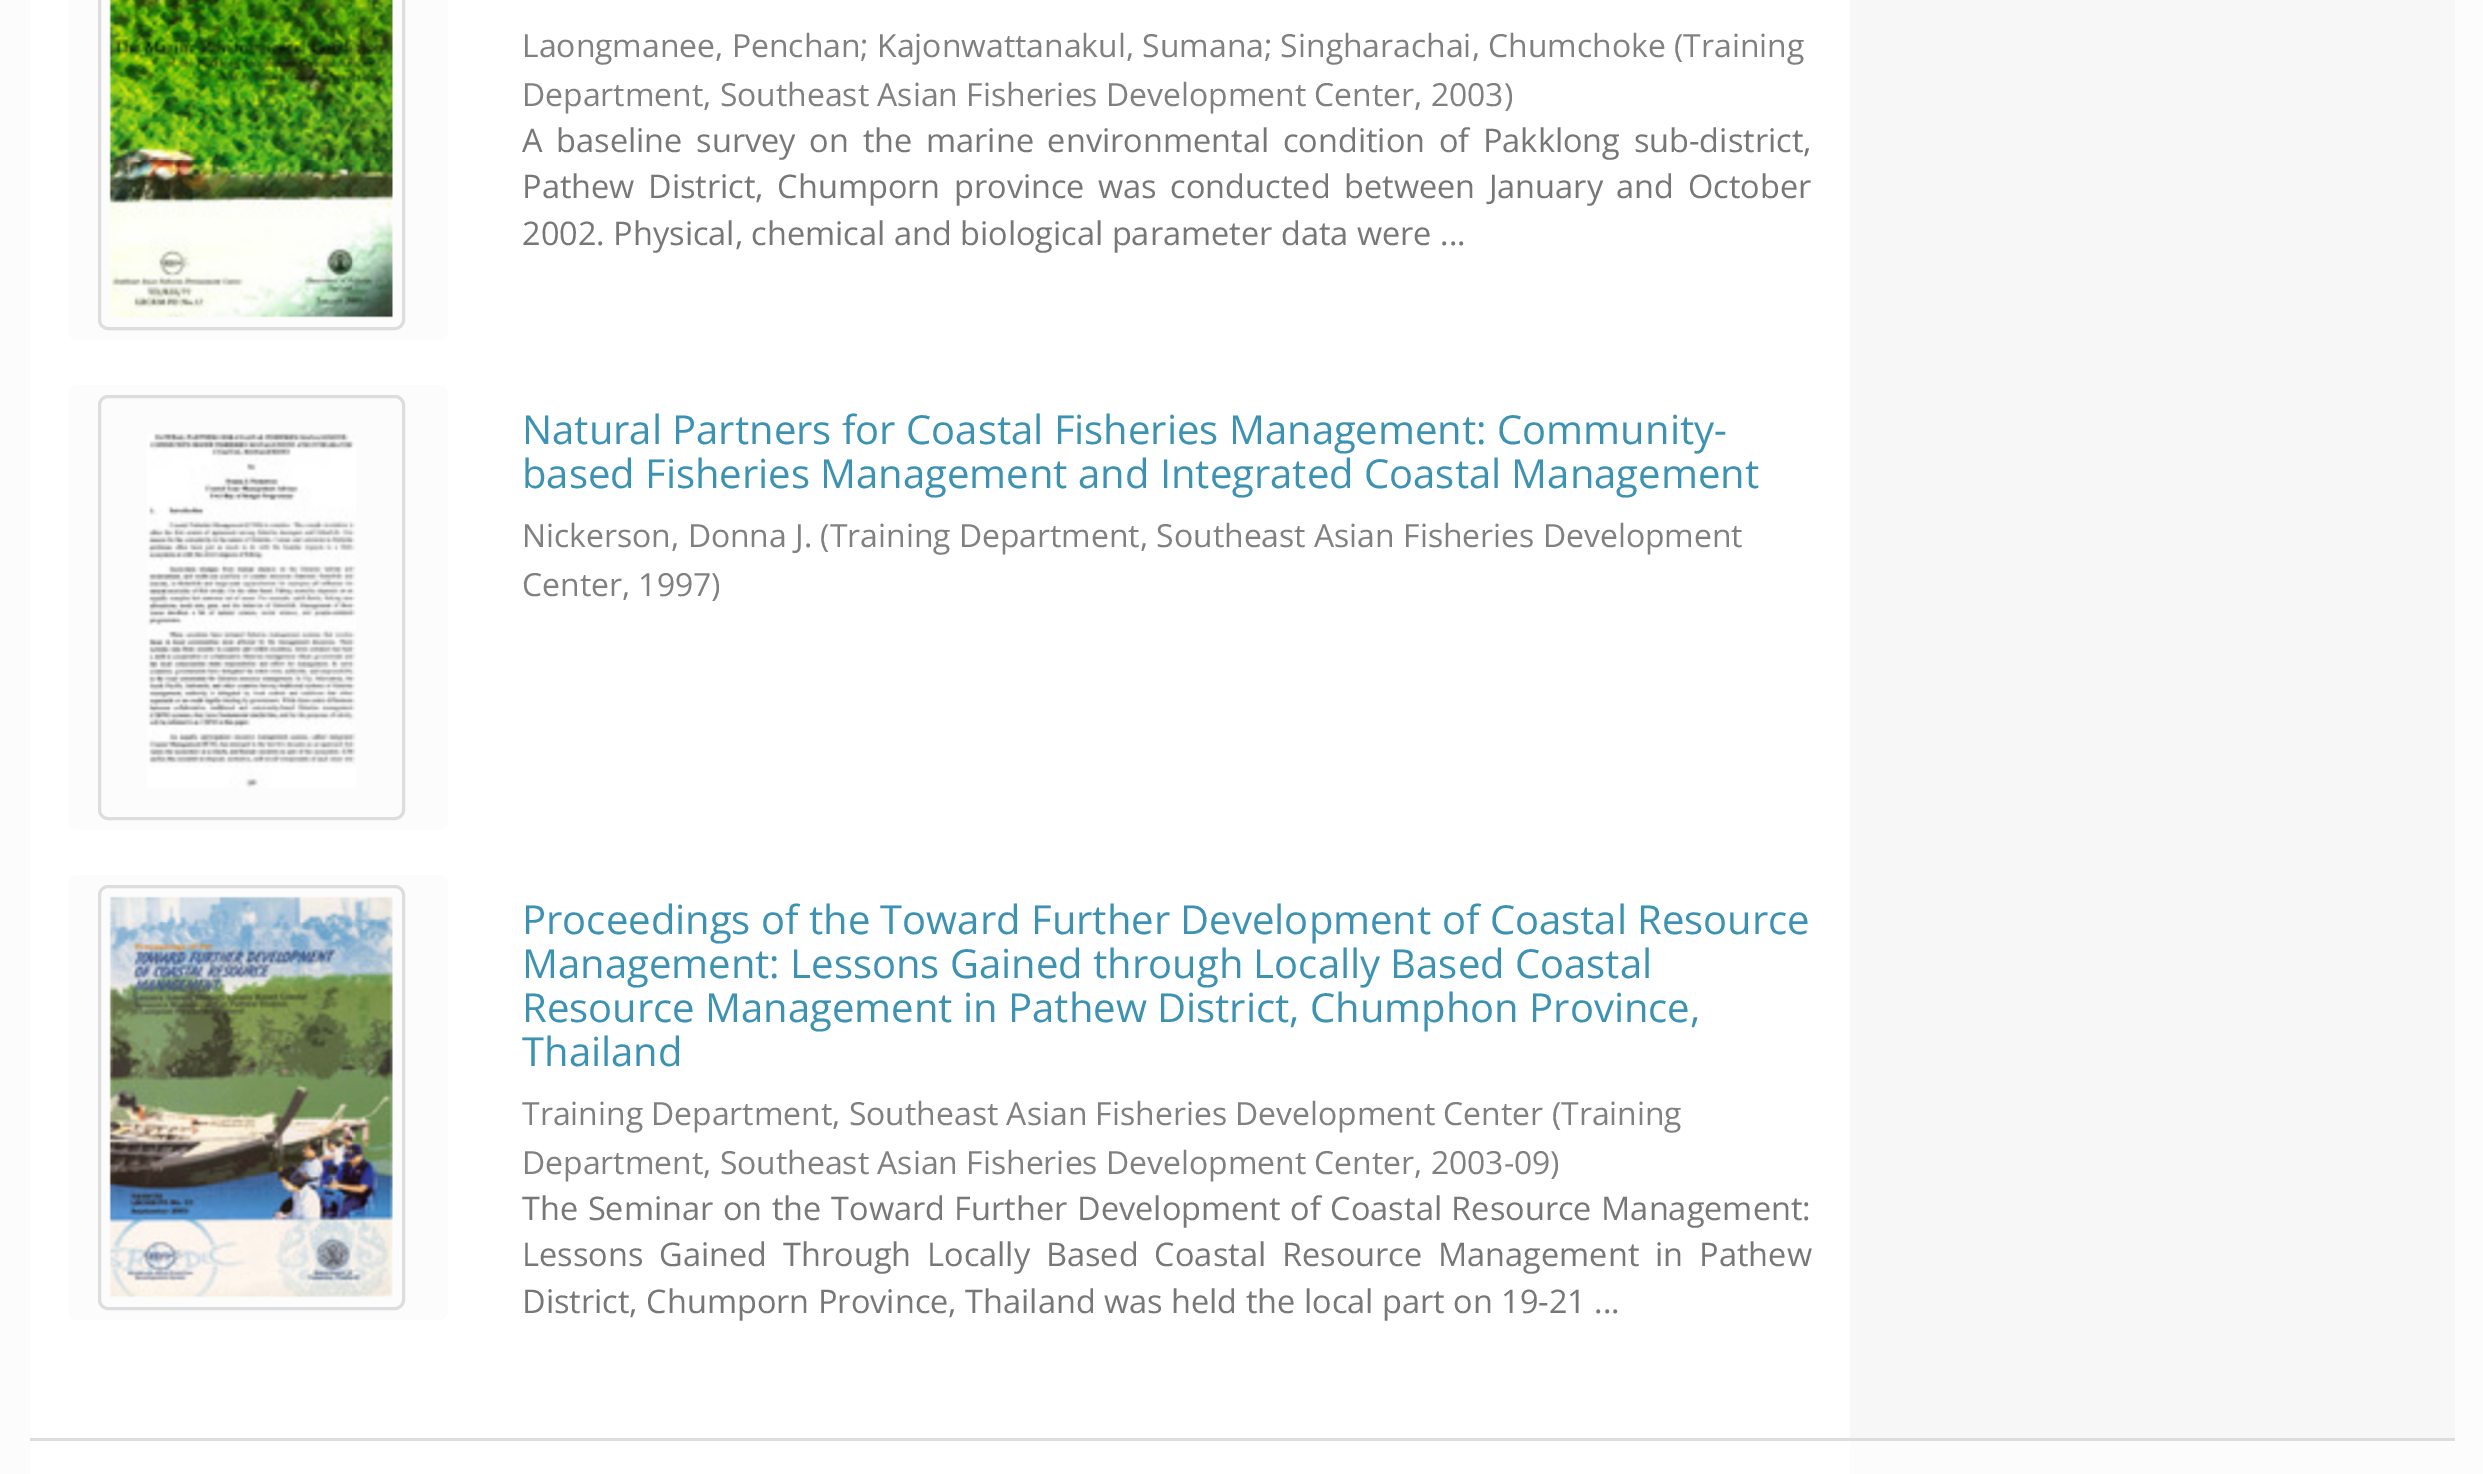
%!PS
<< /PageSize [2483 1474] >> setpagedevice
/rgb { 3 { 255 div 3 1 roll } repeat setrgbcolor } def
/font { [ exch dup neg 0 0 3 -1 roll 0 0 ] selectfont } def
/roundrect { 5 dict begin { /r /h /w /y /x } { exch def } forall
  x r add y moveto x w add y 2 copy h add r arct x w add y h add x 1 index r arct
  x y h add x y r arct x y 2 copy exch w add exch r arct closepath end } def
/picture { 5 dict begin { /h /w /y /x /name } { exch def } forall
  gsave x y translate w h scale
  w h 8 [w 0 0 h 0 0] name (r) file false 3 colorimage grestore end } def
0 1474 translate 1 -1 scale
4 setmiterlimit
252 252 252 rgb
0 0 2483 1474 rectfill
247 247 247 rgb
1850 0 605 1438 rectfill
255 255 255 rgb
30 0 1820 1474 rectfill
252 252 252 rgb
68 -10 380 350 10 roundrect fill
221 221 221 rgb
3 setlinewidth
99.5 -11.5 304 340 8.5 roundrect stroke
(img/1.rgb) 109 0 284 318 picture
252 252 252 rgb
68 385 380 445 10 roundrect fill
221 221 221 rgb
99.5 396.5 304 422 8.5 roundrect stroke
(img/2.rgb) 147 433 209 355 picture
252 252 252 rgb
68 875 380 445 10 roundrect fill
221 221 221 rgb
99.5 886.5 304 422 8.5 roundrect stroke
(img/3.rgb) 109 896 284 402 picture
30 1438 2425 3 rectfill
/OpenSans-Regular 31.9 font
128 128 128 rgb
522 57 moveto (Laongmanee, Penchan; Kajonwattanakul, Sumana; Singharachai, Chumchoke \(Training) show
522 106 moveto (Department, Southeast Asian Fisheries Development Center, 2003\)) show
/OpenSans-Regular 32.5 font
119 119 119 rgb
522 152 moveto 5.25 0 32 (A baseline survey on the marine environmental condition of Pakklong sub-district,) widthshow
522 198 moveto 5 0 32 (Pathew District, Chumporn province was conducted between January and October) widthshow
522 245 moveto (2002. Physical, chemical and biological parameter data were ...) show
/OpenSans-Regular 40 font
60 146 179 rgb
522 444 moveto (Natural Partners for Coastal Fisheries Management: Community-) show
522 488 moveto (based Fisheries Management and Integrated Coastal Management) show
/OpenSans-Regular 31.9 font
128 128 128 rgb
522 547 moveto (Nickerson, Donna J. \(Training Department, Southeast Asian Fisheries Development) show
522 596 moveto (Center, 1997\)) show
/OpenSans-Regular 40 font
60 146 179 rgb
[
  [(Proceedings of the Toward Further Development of Coastal Resource) 522 934]
  [(Management: Lessons Gained through Locally Based Coastal) 522 978]
  [(Resource Management in Pathew District, Chumphon Province,) 522 1022]
  [(Thailand) 522 1066]
] { aload pop moveto show } forall
/OpenSans-Regular 31.9 font
128 128 128 rgb
522 1125 moveto (Training Department, Southeast Asian Fisheries Development Center \(Training) show
522 1174 moveto (Department, Southeast Asian Fisheries Development Center, 2003-09\)) show
/OpenSans-Regular 32.5 font
119 119 119 rgb
522 1220 moveto 1.1 0 32 (The Seminar on the Toward Further Development of Coastal Resource Management:) widthshow
522 1266 moveto 7.5 0 32 (Lessons Gained Through Locally Based Coastal Resource Management in Pathew) widthshow
522 1313 moveto (District, Chumporn Province, Thailand was held the local part on 19-21 ...) show
showpage
